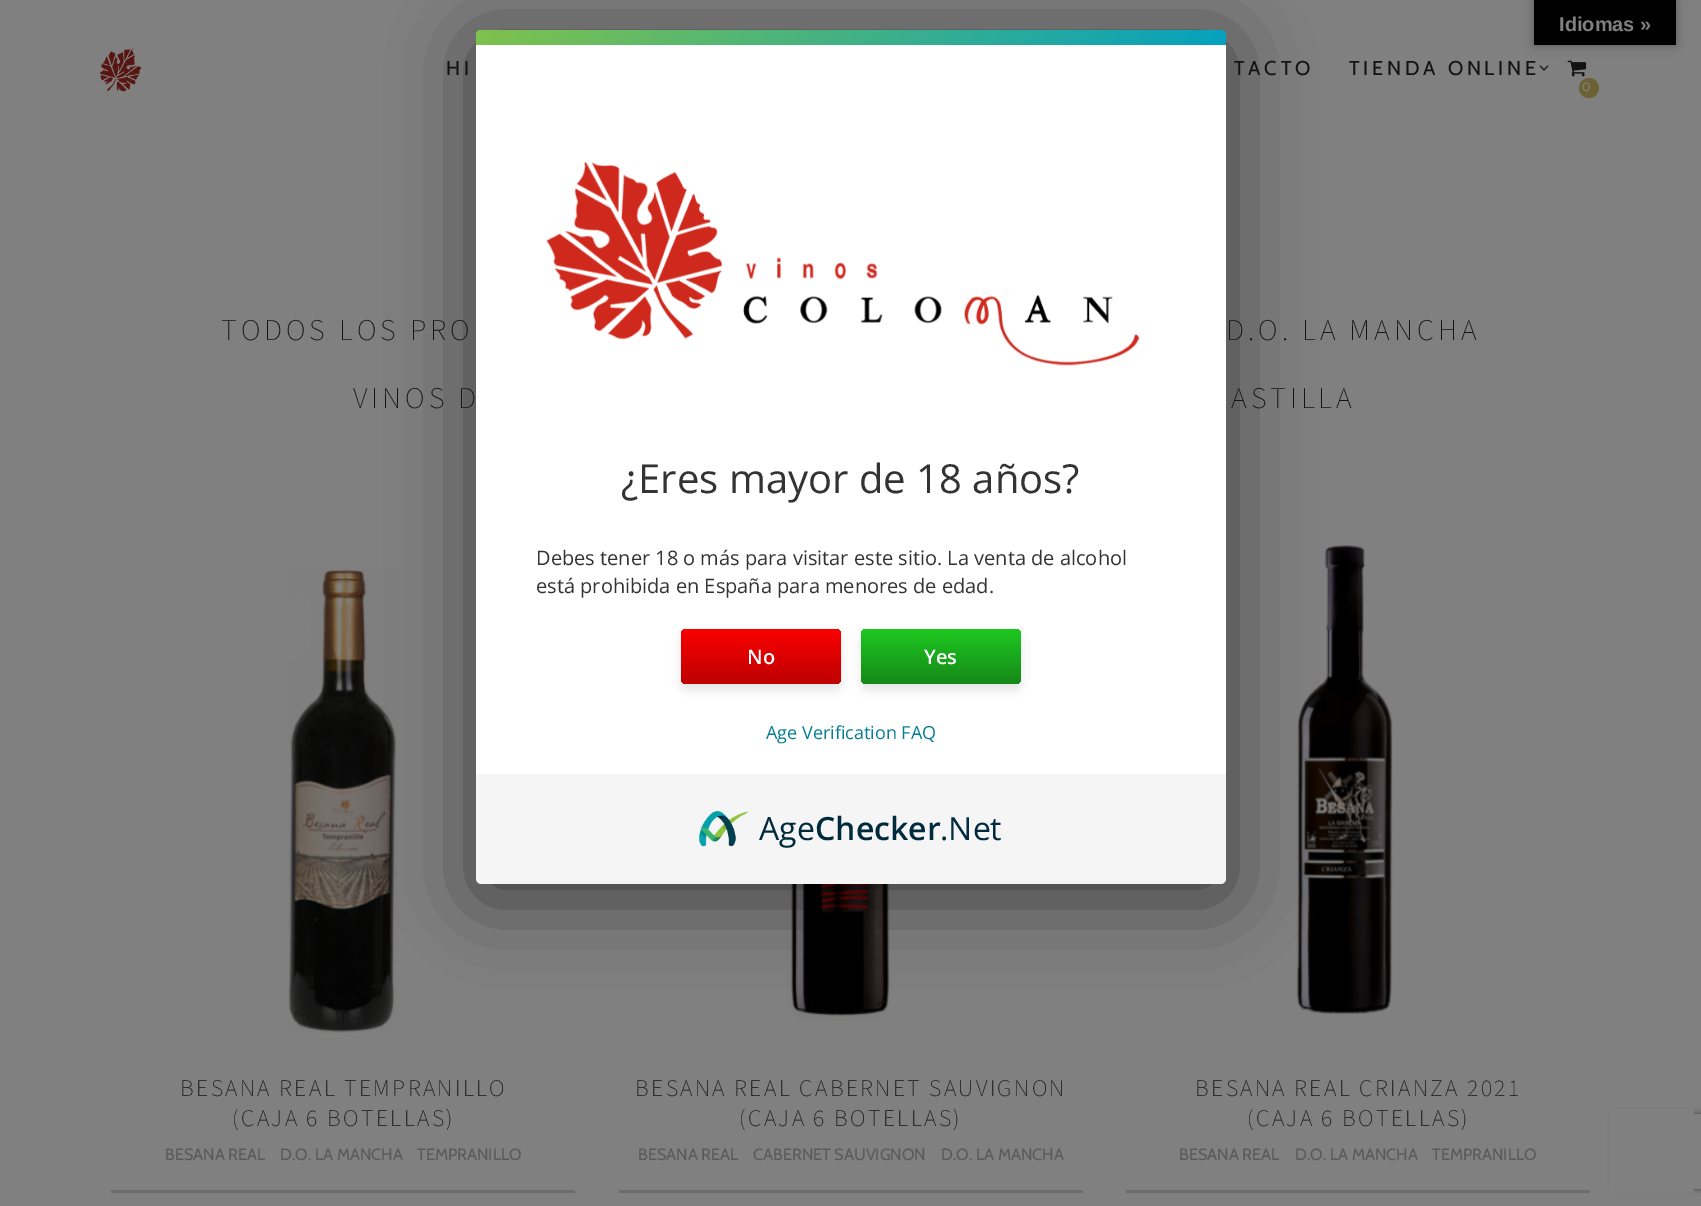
%!PS
<< /PageSize [1701 1206] /PageUsesTransparency true >> setpagedevice
/rgb { 3 { 255 div 3 1 roll } repeat setrgbcolor } def
/font { [ exch dup neg 0 0 3 -1 roll 0 0 ] selectfont } def
/alpha { dup .setfillconstantalpha .setstrokeconstantalpha } def
/circle { newpath 0 360 arc closepath } def
/roundrect { 5 dict begin { /r /h /w /y /x } { exch def } forall
  x r add y moveto x w add y 2 copy h add r arct x w add y h add x 1 index r arct
  x y h add x y r arct x y 2 copy exch w add exch r arct closepath end } def
/shadow { 12 dict begin { /a /b /q /h /w /y /x } { exch def } forall gsave /was 0 def
  9 -2 -9 { dup b mul 4 div /e exch def 1 sub .425 mul 2.718 exch exp 1 add a .99 .min exch div /now exch def
    1 1 now sub 1 was sub div sub alpha /was now def
    w h .min e 2 mul add 0 gt { x e sub y e sub w e 2 mul add h e 2 mul add
      q e add b .6 mul add w h .min 2 div e add .min 0 .max roundrect fill } if } for grestore end } def
/picture { 5 dict begin { /h /w /y /x /name } { exch def } forall
  gsave x y translate w h scale
  w h 8 [w 0 0 h 0 0] name (r) file false 3 colorimage grestore end } def
0 .pushpdf14devicefilter
0 1206 translate 1 -1 scale
4 setmiterlimit
128 128 128 rgb
0 0 1701 1206 rectfill
(img/2.rgb) 1567 60 20 17 picture
0 0 0 rgb
1534 0 142 45 0 5.5 0.3 shadow
1534 0 142 45 rectfill
(img/1.rgb) 100 47 42 45 picture
19 19 19 rgb
1547.5 65.5 moveto 1548.5 66 lineto 1544 70.5 lineto 1543 70 lineto closepath fill
1540.5 65.5 moveto 1545 70 lineto 1544 70.5 lineto 1539.5 66 lineto closepath fill
108 98 51 rgb
1589 88 10 circle fill
gsave
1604 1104 moveto 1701 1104 lineto 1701 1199 lineto 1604 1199 lineto closepath 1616.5 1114 moveto 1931.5 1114 lineto 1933 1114 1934 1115 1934 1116.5 curveto 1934 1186.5 lineto 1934 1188 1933 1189 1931.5 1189 curveto 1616.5 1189 lineto 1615 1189 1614 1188 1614 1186.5 curveto 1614 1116.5 lineto 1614 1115 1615 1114 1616.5 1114 curveto closepath eoclip newpath
64 64 64 rgb
1614 1114 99 75 2.5 3 1 shadow
grestore
128 128 128 rgb
1609 1109 85 85 rectfill
(img/3.rgb) 288 569 109 464 picture
108 108 108 rgb
111 1190 464 3 rectfill
(img/4.rgb) 786 884 104 137 picture
619 1190 464 3 rectfill
(img/5.rgb) 1296 545 97 470 picture
1126 1190 464 3 rectfill
0 0 0 rgb
473 39 757 861 10 40 0.5 shadow
255 255 255 rgb
476 30 750 854 6 roundrect fill
gsave 482 30 moveto 1220 30 lineto 1223.5 30 1226 32.5 1226 36 curveto 1226 45 lineto 476 45 lineto 476 36 lineto 476 32.5 478.5 30 482 30 curveto closepath clip newpath
<< /ShadingType 2 /ColorSpace /DeviceRGB /Coords [660 -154 1043 229] /Extend [true true] /Function << /FunctionType 2 /Domain [0 1] /C0 [0.498 0.761 0.298] /C1 [0.016 0.631 0.749] /N 1 >> >> shfill grestore
(img/6.rgb) 546 162 594 204 picture
0 0 0 rgb
681 635 160 55 6 5 0.1 shadow
gsave 681 629 160 55 6 roundrect clip newpath
<< /ShadingType 2 /ColorSpace /DeviceRGB /Coords [761 629 761 684] /Extend [true true] /Function << /FunctionType 2 /Domain [0 1] /C0 [0.98 0 0] /C1 [0.745 0 0] /N 1 >> >> shfill grestore
861 635 160 55 6 5 0.1 shadow
gsave 861 629 160 55 6 roundrect clip newpath
<< /ShadingType 2 /ColorSpace /DeviceRGB /Coords [941 629 941 684] /Extend [true true] /Function << /FunctionType 2 /Domain [0 1] /C0 [0.114 0.784 0.125] /C1 [0.086 0.533 0.098] /N 1 >> >> shfill grestore
245 245 245 rgb
476 774 moveto 1226 774 lineto 1226 878 lineto 1226 881.5 1223.5 884 1220 884 curveto 482 884 lineto 478.5 884 476 881.5 476 878 curveto closepath fill
(img/7.rgb) 698 811 50 36 picture
/LiberationSans-Bold 20 font
128 128 128 rgb
1559 31 moveto (Idiomas ») show
/Cabin-Regular 20 font
19 19 19 rgb
446 75 moveto 3.75 0 (HI) ashow
1234 75 moveto 3.75 0 (TACTO) ashow
1349 75 moveto 3.75 0 (TIENDA ONLINE) ashow
/Cabin-Regular 12 font
128 128 128 rgb
1582 91 moveto 3.75 0 (0) ashow
/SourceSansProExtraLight-ExtraLight 30 font
19 19 19 rgb
221 340 moveto 4 0 (TODOS LOS PRO) ashow
1226 340 moveto 4 0 (D.O. LA MANCHA) ashow
353 408 moveto 4 0 (VINOS D) ashow
1231 408 moveto 4 0 (ASTILLA) ashow
/SourceSansProExtraLight-ExtraLight 23.75 font
180 1096 moveto 2.4 0 (BESANA REAL TEMPRANILLO) ashow
232 1126 moveto 2.4 0 (\(CAJA 6 BOTELLAS\)) ashow
/Cabin-Regular 16.25 font
90 90 90 rgb
[
  [(BESANA REAL) 165 1160]
  [(D.O. LA MANCHA) 280 1160]
  [(TEMPRANILLO) 417 1160]
] { aload pop moveto show } forall
/SourceSansProExtraLight-ExtraLight 23.75 font
19 19 19 rgb
635 1096 moveto 2.4 0 (BESANA REAL CABERNET SAUVIGNON) ashow
739 1126 moveto 2.4 0 (\(CAJA 6 BOTELLAS\)) ashow
/Cabin-Regular 16.25 font
90 90 90 rgb
[
  [(BESANA REAL) 638 1160]
  [(CABERNET SAUVIGNON) 753 1160]
  [(D.O. LA MANCHA) 941 1160]
] { aload pop moveto show } forall
/SourceSansProExtraLight-ExtraLight 23.75 font
19 19 19 rgb
1195 1096 moveto 2.4 0 (BESANA REAL CRIANZA 2021) ashow
1247 1126 moveto 2.4 0 (\(CAJA 6 BOTELLAS\)) ashow
/Cabin-Regular 16.25 font
90 90 90 rgb
[
  [(BESANA REAL) 1179 1160]
  [(D.O. LA MANCHA) 1295 1160]
  [(TEMPRANILLO) 1432 1160]
] { aload pop moveto show } forall
/OpenSans-Regular 40 font
51 51 51 rgb
621 493 moveto (¿Eres mayor de 18 años?) show
/OpenSans-Regular 20 font
536 565 moveto (Debes tener 18 o más para visitar este sitio. La venta de alcohol) show
536 593 moveto (está prohibida en España para menores de edad.) show
/OpenSans-SemiBold 20 font
255 255 255 rgb
747 664 moveto (No) show
924 664 moveto (Yes) show
/OpenSans-Regular 18 font
3 125 150 rgb
766 739 moveto (Age Verification FAQ) show
/OpenSans-Regular 32 font
0 43 62 rgb
759 840 moveto (Age) show
/OpenSans-SemiBold 32 font
815 840 moveto (Checker) show
/OpenSans-Regular 32 font
940 840 moveto (.Net) show
.poppdf14devicefilter showpage
